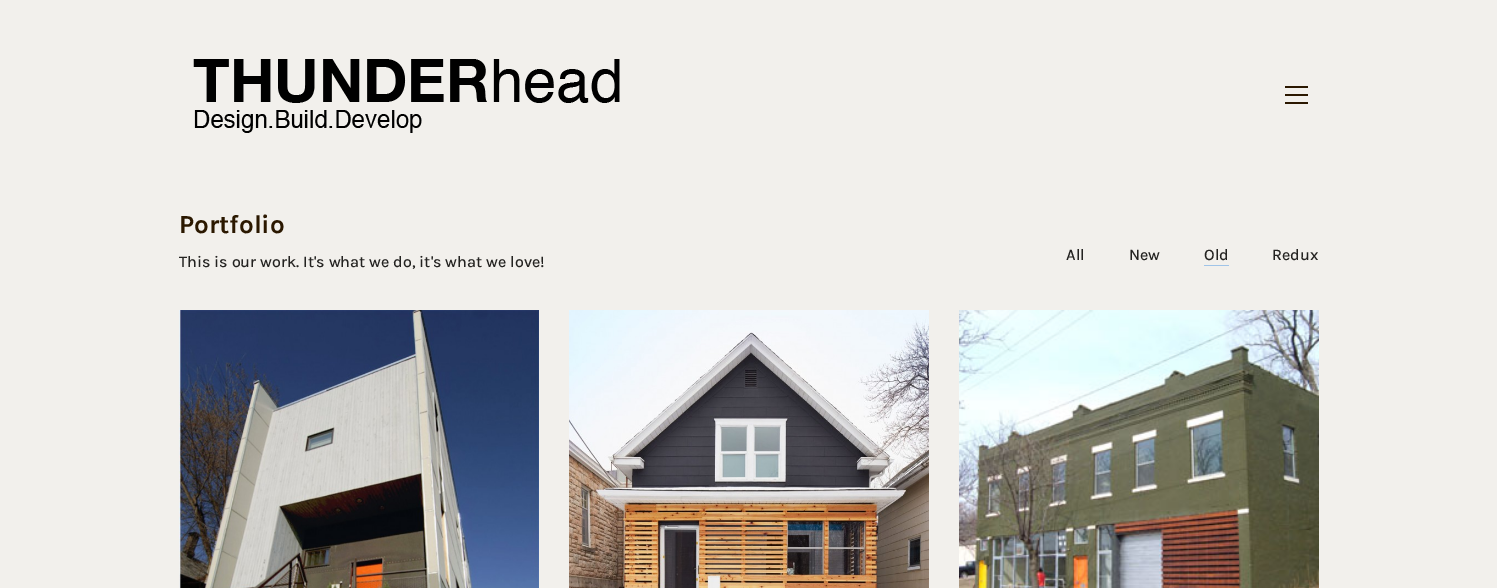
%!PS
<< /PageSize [1497 588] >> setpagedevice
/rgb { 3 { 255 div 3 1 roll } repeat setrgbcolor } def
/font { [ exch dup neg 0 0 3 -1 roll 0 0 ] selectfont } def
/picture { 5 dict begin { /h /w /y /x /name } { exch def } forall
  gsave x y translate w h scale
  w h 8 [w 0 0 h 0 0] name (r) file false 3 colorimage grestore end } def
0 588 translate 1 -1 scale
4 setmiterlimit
242 240 236 rgb
0 0 1497 588 rectfill
(img/1.rgb) 193 59 427 74 picture
[
  [1285 94 23 2 43 24 0]
  [1285 86 23 2 43 24 0]
  [1285 102 23 2 43 24 0]
  [1204 265 25 1 160 196 232]
] { aload pop rgb rectfill } forall
(img/2.rgb) 179 310 360 278 picture
(img/3.rgb) 569 310 360 278 picture
(img/4.rgb) 959 310 360 278 picture
/Karla-Bold 26 font
43 24 0 rgb
179 233 moveto (Portfolio) show
/Karla-Medium 16 font
36 35 33 rgb
[
  [(This is our work. It's what we do, it's what we love!) 179 267]
  [(All) 1066 260]
  [(New) 1129 260]
  [(Old) 1204 260]
  [(Redux) 1272 260]
] { aload pop moveto show } forall
showpage
